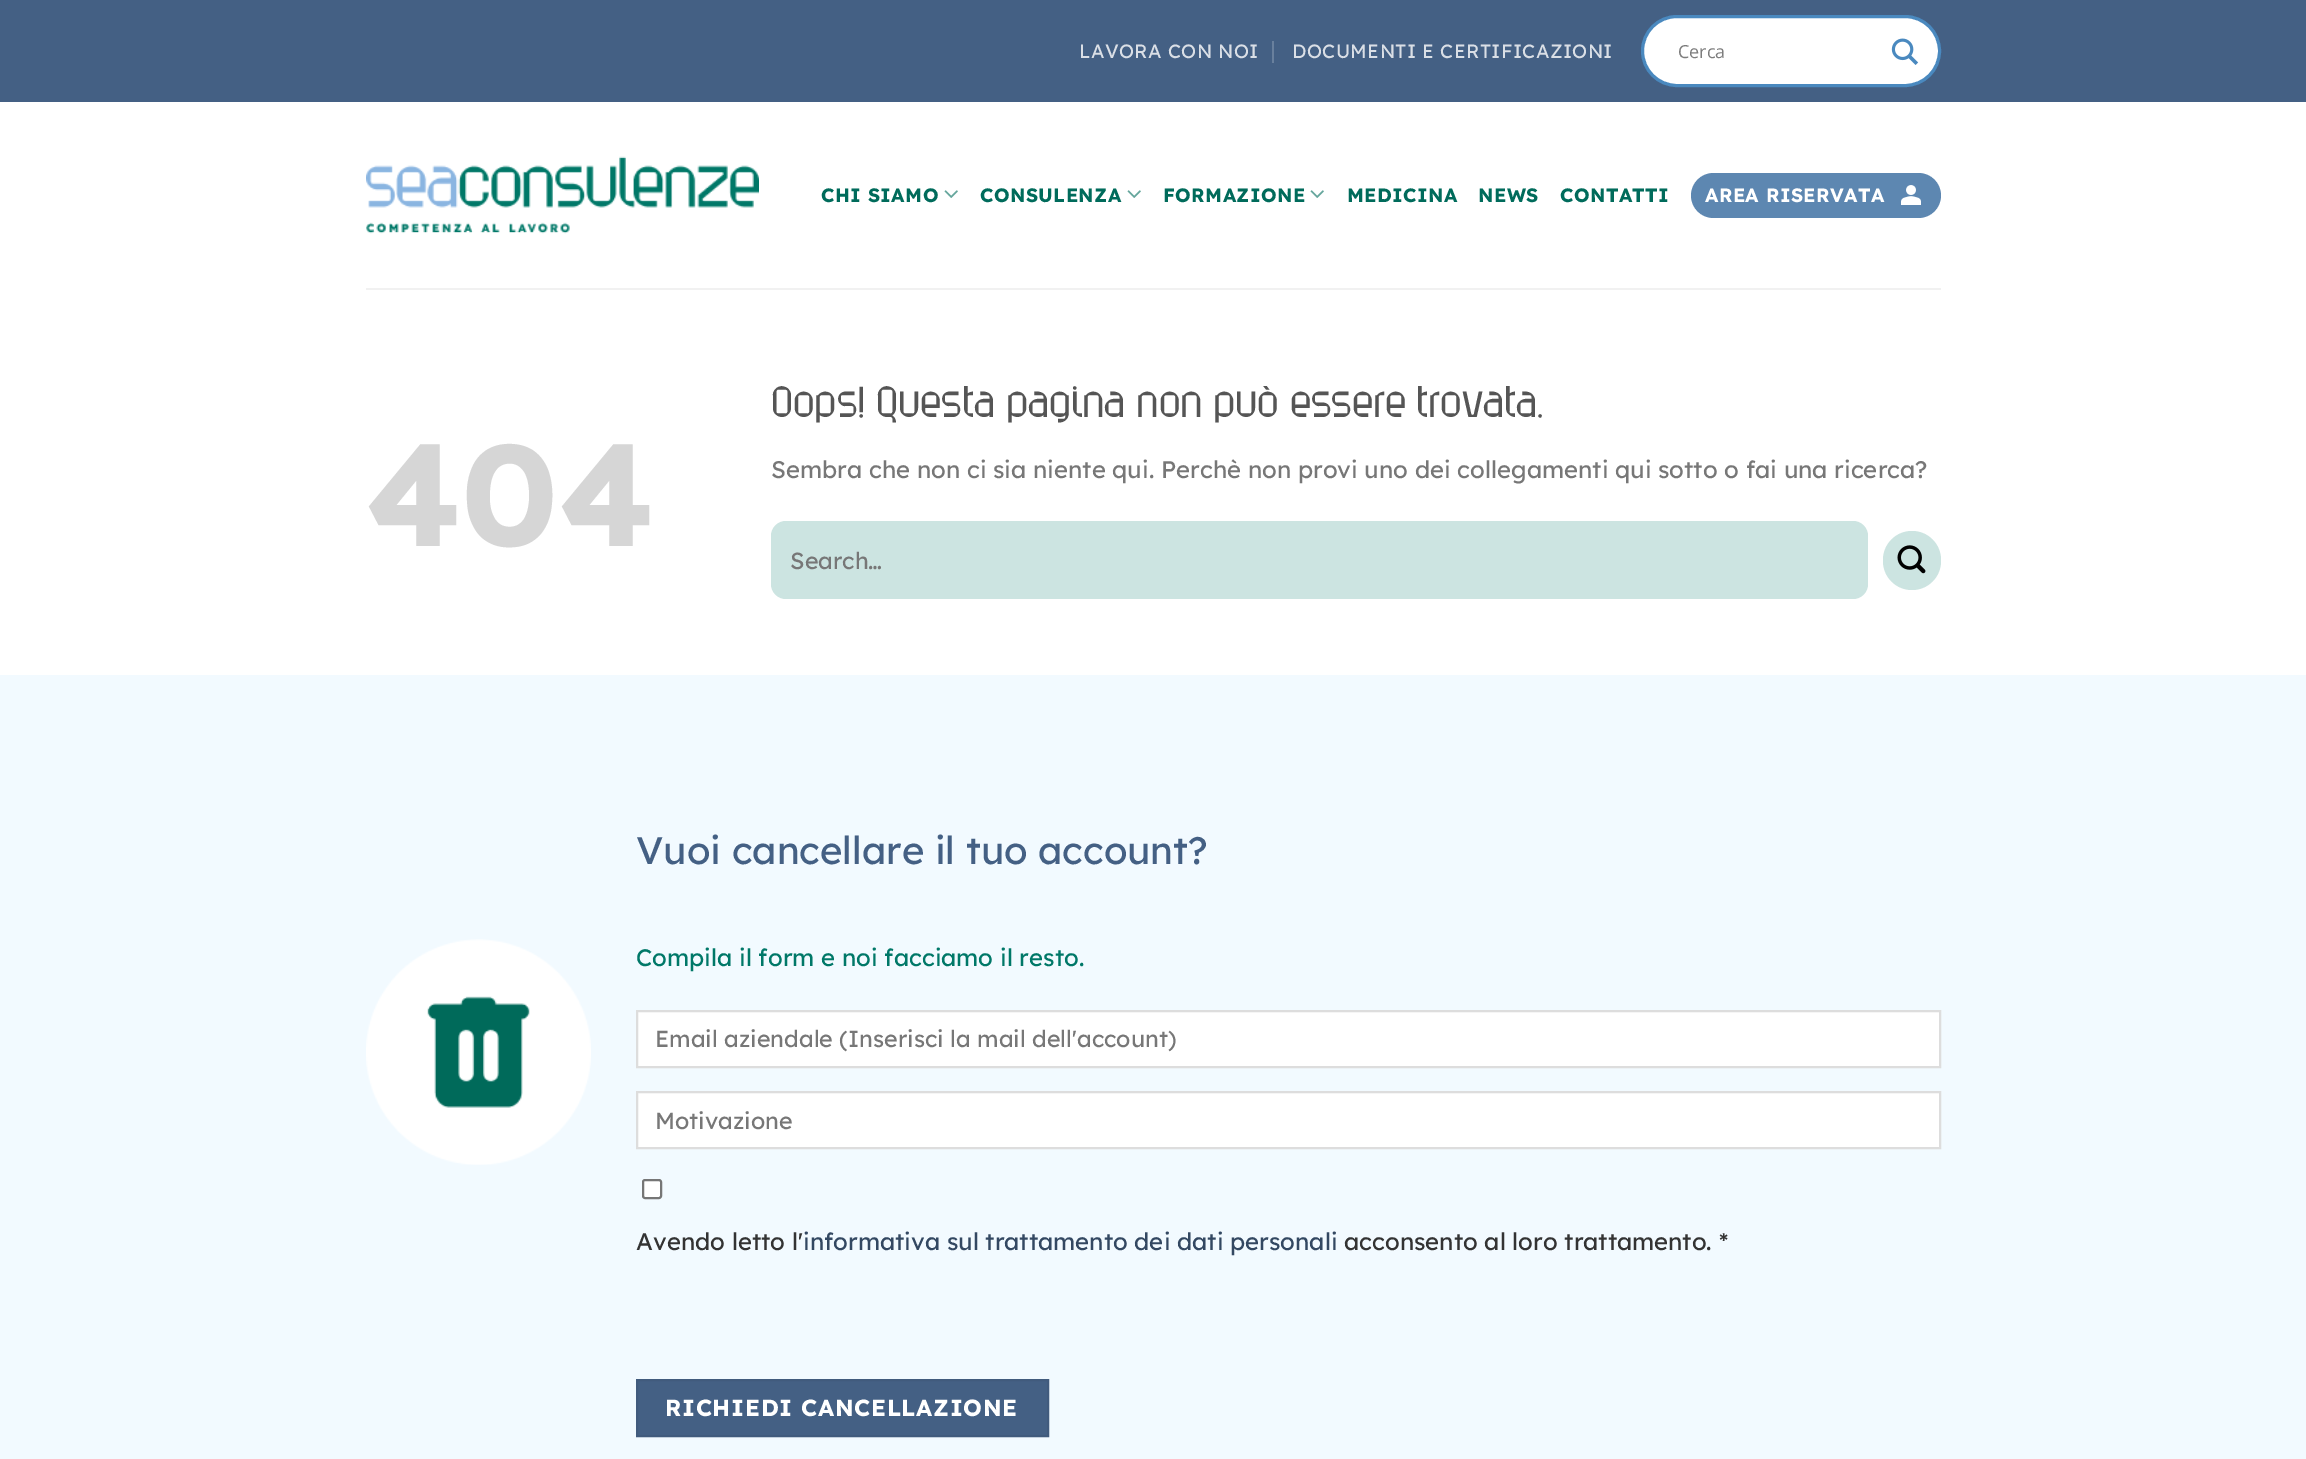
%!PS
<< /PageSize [2306 1459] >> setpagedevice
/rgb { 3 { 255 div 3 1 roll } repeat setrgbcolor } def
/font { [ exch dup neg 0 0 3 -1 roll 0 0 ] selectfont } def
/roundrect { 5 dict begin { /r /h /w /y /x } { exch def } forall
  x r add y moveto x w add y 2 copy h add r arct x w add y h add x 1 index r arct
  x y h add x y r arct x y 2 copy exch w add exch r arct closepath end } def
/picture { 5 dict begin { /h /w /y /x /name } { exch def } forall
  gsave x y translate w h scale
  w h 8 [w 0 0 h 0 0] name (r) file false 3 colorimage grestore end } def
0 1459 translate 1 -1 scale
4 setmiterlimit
255 255 255 rgb
0 0 2306 1459 rectfill
68 96 132 rgb
0 0 2306 102 rectfill
105 128 157 rgb
1272 41 2 22 rectfill
255 255 255 rgb
1642.5 16.5 297 69 34.5 roundrect gsave fill grestore
74 137 191 rgb
3 setlinewidth
stroke
(img/1.rgb) 1891 38 28 27 picture
(img/2.rgb) 366 156 393 78 picture
(img/3.rgb) 944 190 14 8 picture
(img/3.rgb) 1127 190 14 8 picture
(img/3.rgb) 1310 190 14 8 picture
93 135 177 rgb
1691 173 250 45 22.5 roundrect fill
(img/4.rgb) 1901 185 20 20 picture
241 241 241 rgb
366 288 1575 2 rectfill
204 228 225 rgb
771 521 1097 78 15 roundrect fill
1883 531 58 59 29 roundrect fill
(img/5.rgb) 1897 545 29 29 picture
242 250 255 rgb
0 675 2306 784 rectfill
(img/6.rgb) 366 939 225 226 picture
255 255 255 rgb
637 1011 moveto 1940 1011 lineto 1940 1067 lineto 637 1067 lineto closepath gsave fill grestore
221 221 221 rgb
2 setlinewidth
stroke
255 255 255 rgb
637 1092 moveto 1940 1092 lineto 1940 1148 lineto 637 1148 lineto closepath gsave fill grestore
221 221 221 rgb
stroke
255 255 255 rgb
643 1180 18 18 2 roundrect gsave fill grestore
118 118 118 rgb
stroke
68 96 132 rgb
637 1380 moveto 1048 1380 lineto 1048 1436 lineto 637 1436 lineto closepath gsave fill grestore
65 91 125 rgb
stroke
/Lexend-Regular 19.25 font
218 223 230 rgb
1079 58 moveto 0.4 0 (LAVORA CON NOI) ashow
1292 58 moveto 0.4 0 (DOCUMENTI E CERTIFICAZIONI) ashow
/OpenSans-Regular 18 font
125 125 125 rgb
1678 58 moveto (Cerca) show
/Lexend-Bold 19.25 font
0 107 91 rgb
821 202 moveto 0.4 0 (CHI SIAMO) ashow
980 202 moveto 0.4 0 (CONSULENZA) ashow
1163 202 moveto 0.4 0 (FORMAZIONE) ashow
1347 202 moveto 0.4 0 (MEDICINA) ashow
1478 202 moveto 0.4 0 (NEWS) ashow
1560 202 moveto 0.4 0 (CONTATTI) ashow
255 255 255 rgb
1705 202 moveto 0.4 0 (AREA RISERVATA) ashow
/Lexend-Bold 144 font
214 214 214 rgb
366 546 moveto (404) show
/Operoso-Regular 40.75 font
85 85 85 rgb
771 417 moveto (Oops! Questa pagina non può essere trovata.) show
/Lexend-Regular 24 font
119 119 119 rgb
771 478 moveto (Sembra che non ci sia niente qui. Perchè non provi uno dei collegamenti qui sotto o fai una ricerca?) show
/Lexend-Regular 23.25 font
790 569 moveto (Search…) show
/Lexend-Regular 38.4 font
68 96 132 rgb
636 864 moveto (Vuoi cancellare il tuo account?) show
/Lexend-Regular 24 font
0 120 104 rgb
636 966 moveto (Compila il form e noi facciamo il resto.) show
/Lexend-Regular 23.25 font
119 119 119 rgb
655 1047 moveto (Email aziendale \(Inserisci la mail dell'account\)) show
655 1129 moveto (Motivazione) show
/Lexend-Regular 24 font
51 51 51 rgb
636 1250 moveto (Avendo letto l') show
51 72 98 rgb
803 1250 moveto (informativa sul trattamento dei dati personali) show
51 51 51 rgb
1344 1250 moveto (acconsento al loro trattamento. *) show
/Lexend-Bold 23.25 font
255 255 255 rgb
665 1416 moveto 0.7 0 (RICHIEDI CANCELLAZIONE) ashow
showpage
